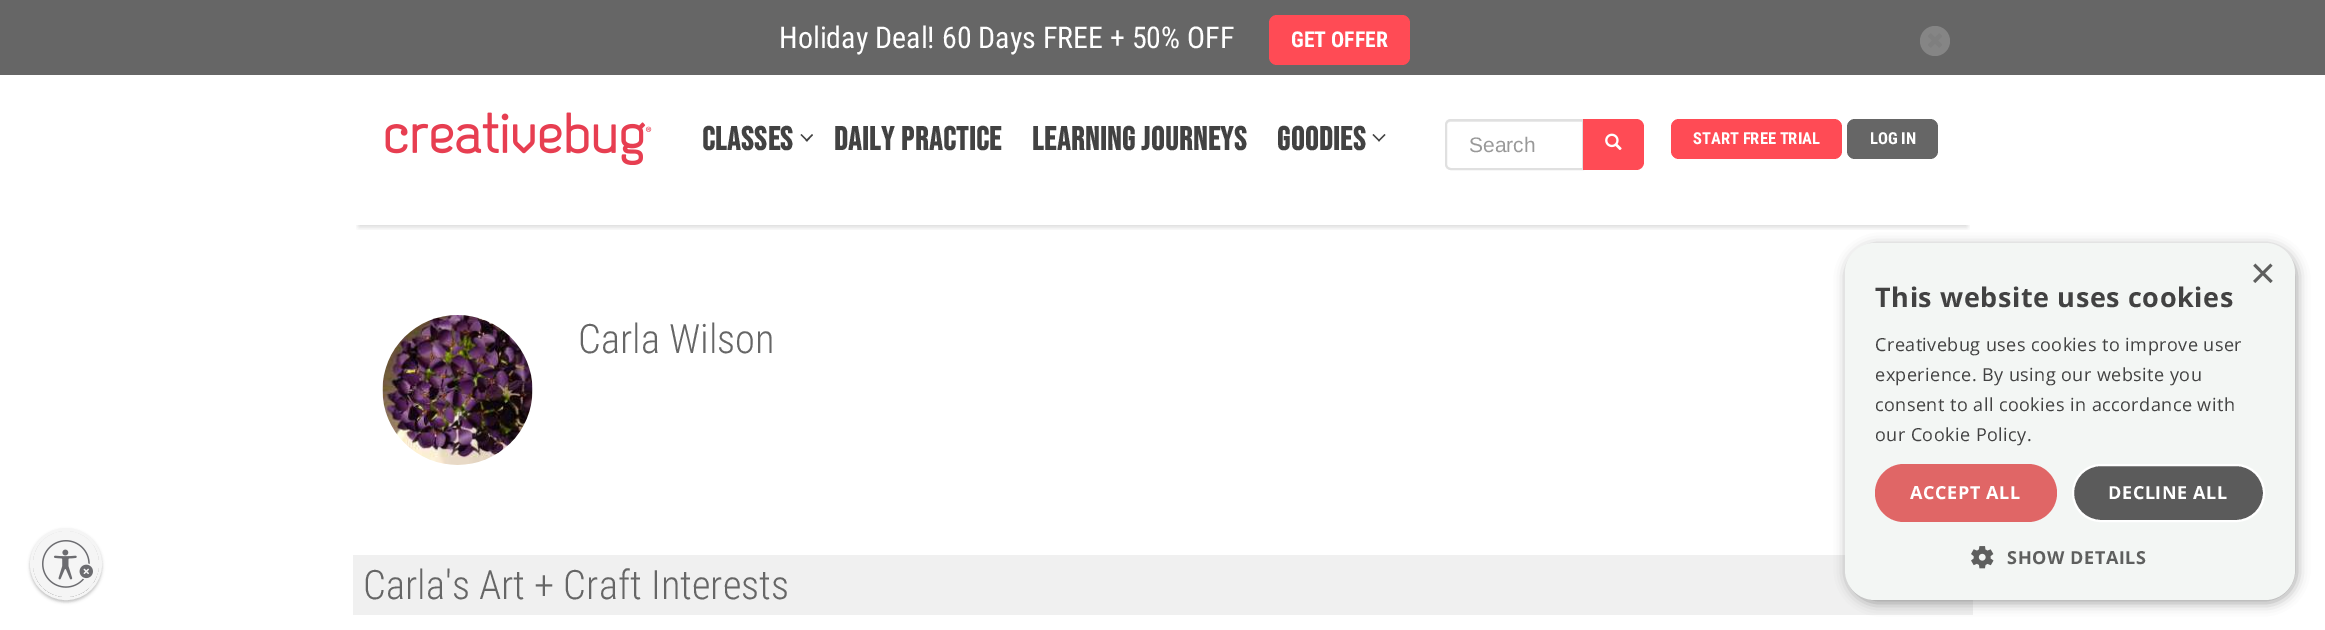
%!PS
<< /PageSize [2325 630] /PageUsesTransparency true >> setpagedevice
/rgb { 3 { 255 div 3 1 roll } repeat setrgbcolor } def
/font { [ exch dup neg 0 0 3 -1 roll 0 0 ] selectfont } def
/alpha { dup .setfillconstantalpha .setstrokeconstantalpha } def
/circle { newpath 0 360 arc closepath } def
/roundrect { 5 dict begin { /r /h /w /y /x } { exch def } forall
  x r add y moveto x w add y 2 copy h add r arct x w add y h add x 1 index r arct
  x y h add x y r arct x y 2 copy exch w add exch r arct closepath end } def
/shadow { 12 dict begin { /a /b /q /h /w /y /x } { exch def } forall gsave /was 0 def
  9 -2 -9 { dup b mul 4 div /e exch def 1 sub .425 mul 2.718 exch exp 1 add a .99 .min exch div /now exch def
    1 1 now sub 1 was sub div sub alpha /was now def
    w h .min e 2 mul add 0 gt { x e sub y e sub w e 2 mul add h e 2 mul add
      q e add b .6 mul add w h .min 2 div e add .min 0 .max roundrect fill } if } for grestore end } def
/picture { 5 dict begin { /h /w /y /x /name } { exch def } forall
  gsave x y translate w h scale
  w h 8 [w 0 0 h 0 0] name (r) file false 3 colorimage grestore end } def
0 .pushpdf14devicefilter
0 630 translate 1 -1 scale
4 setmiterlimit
255 255 255 rgb
0 0 2325 630 rectfill
0 0 0 rgb
30 530 72 72 36 1.5 0.24 shadow
245 245 245 rgb
3 setlinewidth
66 564 34.5 circle stroke
gsave
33 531 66 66 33 roundrect clip newpath
0 0 0 rgb
33 533 66 66 33 1.5 0.24 shadow
grestore
66 564 33 circle fill
(img/1.rgb) 42 540 51 48 picture
102 102 102 rgb
0 0 2325 75 rectfill
255 75 85 rgb
1269 15 141 50 8 roundrect fill
133 133 133 rgb
1935 41 15 circle fill
(img/2.rgb) 1928 33 14 15 picture
gsave
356 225 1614 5 rectclip
0 0 0 rgb
359 89 1608 138 0 3 0.16 shadow
grestore
(img/3.rgb) 385 112 267 53 picture
66 66 66 rgb
812 134 moveto 813 135 lineto 807 141.5 lineto 805.5 140.5 lineto closepath fill
801.5 134 moveto 808 140.5 lineto 807 141.5 lineto 800.5 135 lineto closepath fill
1384.5 134 moveto 1385.5 135 lineto 1379 141.5 lineto 1378 140.5 lineto closepath fill
1373.5 134 moveto 1380 140.5 lineto 1379 141.5 lineto 1372.5 135 lineto closepath fill
236 236 236 rgb
1450 122 moveto 1582 122 lineto 1582 168 lineto 1583 168 lineto 1583 120 lineto 1451 120 lineto 1448 120 1446 122 1446 125 curveto 1446 126 lineto 1446 124 1448 122 1450 122 curveto closepath fill
224 224 224 rgb
2 setlinewidth
1451 120 moveto 1583 120 lineto 1583 169 lineto 1451 169 lineto 1448 169 1446 167 1446 164 curveto 1446 125 lineto 1446 122 1448 120 1451 120 curveto closepath stroke
255 75 85 rgb
1583 119 moveto 1636 119 lineto 1640.5 119 1644 122.5 1644 127 curveto 1644 162 lineto 1644 166.5 1640.5 170 1636 170 curveto 1583 170 lineto closepath fill
(img/4.rgb) 1605 133 17 17 picture
1671 119 171 40 8 roundrect fill
102 102 102 rgb
1847 119 91 40 8 roundrect fill
(img/5.rgb) 382 315 151 150 picture
240 240 240 rgb
353 555 1620 60 rectfill
0 0 0 rgb
1847 246 450 357 30 6 0.35 shadow
243 246 244 rgb
1845 243 450 357 30 roundrect fill
224 102 102 rgb
1875 464 182 58 29 roundrect fill
91 91 91 rgb
2073 465 191 56 28 roundrect gsave fill grestore
255 255 255 rgb
stroke
(img/6.rgb) 1971 546 23 23 picture
/RobotoCondensed-Regular 30 font
779 48 moveto (Holiday Deal! 60 Days FREE + 50% OFF) show
/RobotoCondensed-Bold 21.75 font
1291 47 moveto (GET OFFER) show
/BebasNeue-Bold 33 font
66 66 66 rgb
702 150 moveto 0.75 0 (Classes) ashow
834 150 moveto 0.75 0 (Daily Practice) ashow
1032 150 moveto 0.75 0 (Learning Journeys) ashow
1277 150 moveto 0.75 0 (Goodies) ashow
/LiberationSans-Regular 21 font
153 153 153 rgb
1469 152 moveto (Search) show
/RobotoCondensed-Bold 16.5 font
255 255 255 rgb
1693 144 moveto (START FREE TRIAL) show
1870 144 moveto (LOG IN) show
/RobotoCondensed-Light 40.5 font
102 102 102 rgb
578 353 moveto (Carla Wilson) show
363 599 moveto (Carla's Art + Craft Interests) show
/LiberationSans-Regular 44 font
94 95 94 rgb
2250 288 moveto (×) show
/OpenSans-Bold 27 font
66 66 66 rgb
1875 307 moveto 0.6 0 (This website uses cookies) ashow
/OpenSans-Regular 18 font
1875 351 moveto 0.45 0 (Creativebug uses cookies to improve user) ashow
1875 381 moveto 0.45 0 (experience. By using our website you) ashow
1875 411 moveto 0.45 0 (consent to all cookies in accordance with) ashow
1875 441 moveto 0.45 0 (our Cookie Policy.) ashow
/OpenSans-Bold 18 font
255 255 255 rgb
1910 499 moveto 0.6 0 (ACCEPT ALL) ashow
2108 499 moveto 0.6 0 (DECLINE ALL) ashow
94 95 94 rgb
2007 564 moveto 0.6 0 (SHOW DETAILS) ashow
.poppdf14devicefilter showpage
